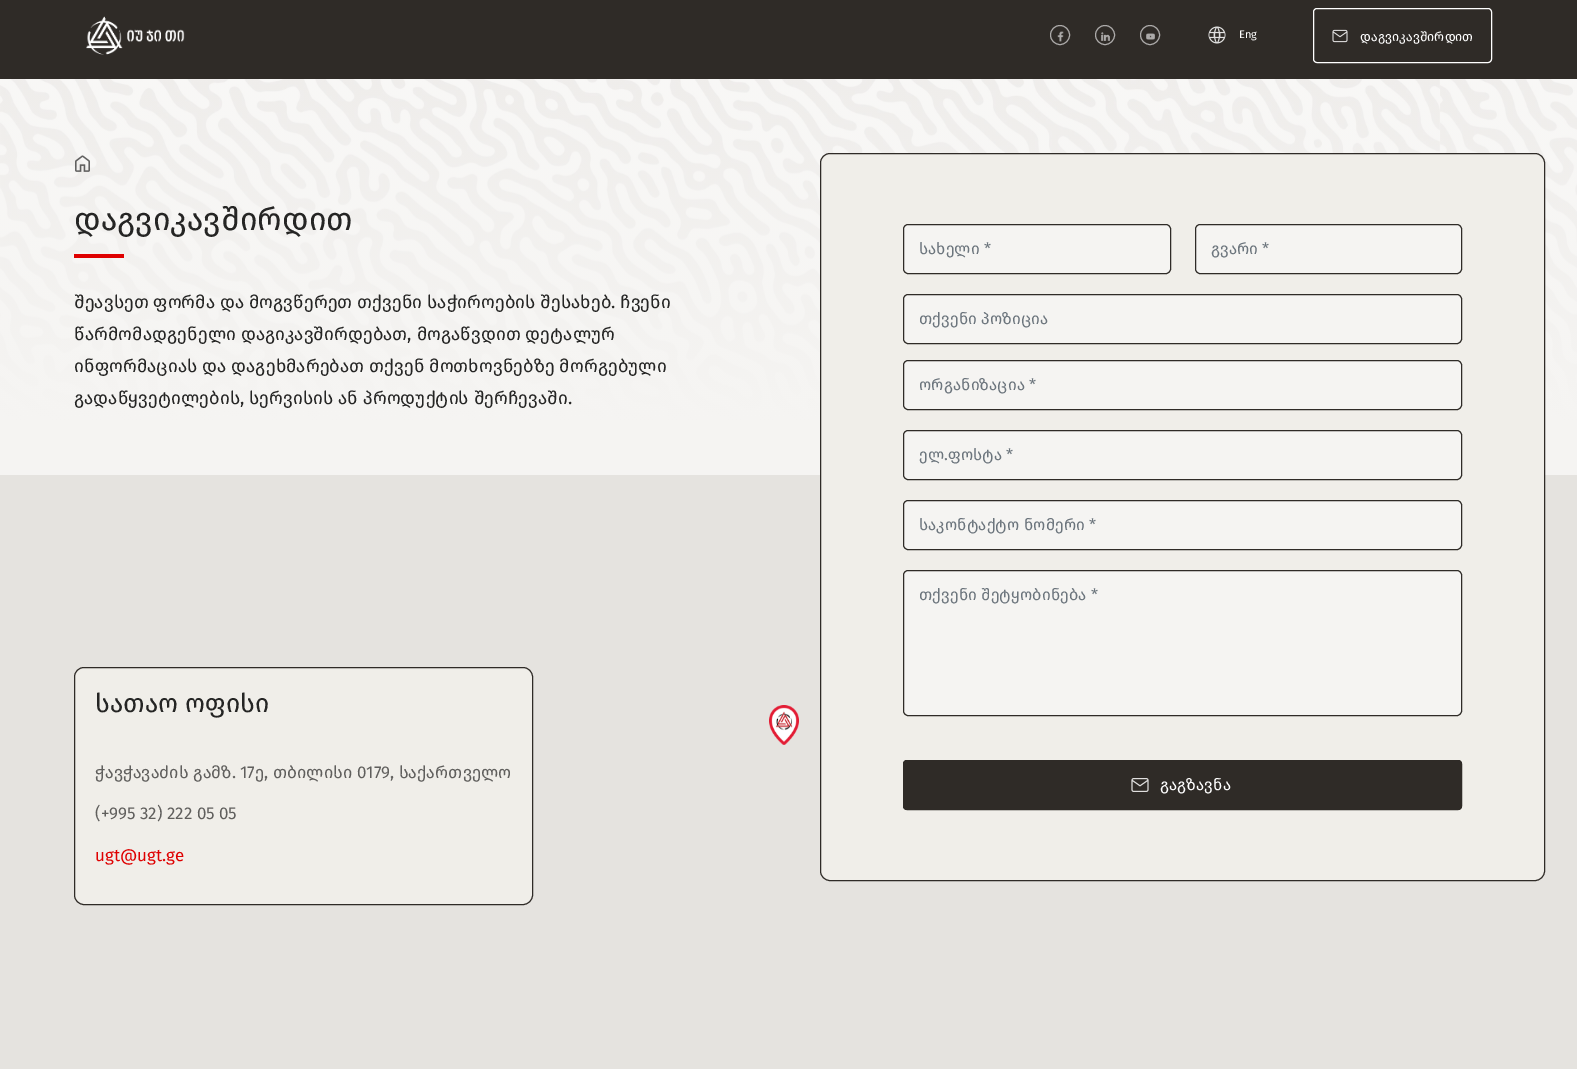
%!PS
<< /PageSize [1577 1069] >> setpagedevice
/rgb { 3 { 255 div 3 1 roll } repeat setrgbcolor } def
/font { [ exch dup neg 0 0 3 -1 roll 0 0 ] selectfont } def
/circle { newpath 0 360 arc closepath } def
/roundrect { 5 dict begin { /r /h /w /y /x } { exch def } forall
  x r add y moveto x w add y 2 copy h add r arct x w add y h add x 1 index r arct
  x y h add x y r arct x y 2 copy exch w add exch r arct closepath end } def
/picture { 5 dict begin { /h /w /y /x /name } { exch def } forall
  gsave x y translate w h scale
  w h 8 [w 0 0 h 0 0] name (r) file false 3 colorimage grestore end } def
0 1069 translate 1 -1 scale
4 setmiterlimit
255 255 255 rgb
0 0 1577 1069 rectfill
47 43 39 rgb
0 0 1577 79 rectfill
(img/1.rgb) 86 16 99 39 picture
172 170 169 rgb
1060 35 9.5 circle stroke
(img/2.rgb) 1057 31 7 11 picture
1105 35 9.5 circle stroke
(img/3.rgb) 1101 32 9 9 picture
1150 35 9.5 circle stroke
(img/4.rgb) 1146 33 9 7 picture
(img/5.rgb) 1208 26 18 18 picture
255 255 255 rgb
1313.5 8.5 178 54 3.5 roundrect stroke
(img/6.rgb) 1332 29 16 14 picture
(img/7.rgb) 0 79 1577 396 picture
(img/8.rgb) 75 155 15 17 picture
223 0 0 rgb
74 254 50 4 rectfill
229 227 223 rgb
0 475 1577 594 rectfill
240 238 233 rgb
74.5 667.5 458 237 9.5 roundrect gsave fill grestore
47 43 39 rgb
stroke
240 238 233 rgb
820.5 153.5 724 727 9.5 roundrect gsave fill grestore
47 43 39 rgb
stroke
245 244 242 rgb
903.5 224.5 267 49 4.5 roundrect gsave fill grestore
47 43 39 rgb
stroke
245 244 242 rgb
1195.5 224.5 266 49 4.5 roundrect gsave fill grestore
47 43 39 rgb
stroke
245 244 242 rgb
903.5 294.5 558 49 4.5 roundrect gsave fill grestore
47 43 39 rgb
stroke
245 244 242 rgb
903.5 360.5 558 49 4.5 roundrect gsave fill grestore
47 43 39 rgb
stroke
245 244 242 rgb
903.5 430.5 558 49 4.5 roundrect gsave fill grestore
47 43 39 rgb
stroke
245 244 242 rgb
903.5 500.5 558 49 4.5 roundrect gsave fill grestore
47 43 39 rgb
stroke
245 244 242 rgb
903.5 570.5 558 145 4.5 roundrect gsave fill grestore
47 43 39 rgb
stroke
903 760 559 50 4 roundrect fill
(img/9.rgb) 1131 778 18 14 picture
903.5 760.5 558 49 3.5 roundrect stroke
(img/10.rgb) 769 705 30 40 picture
/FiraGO-Regular 11 font
255 255 255 rgb
1239 38 moveto (Eng) show
/FiraGO-Regular 13 font
1360 41 moveto (დაგვიკავშირდით) show
/FiraGO-Regular 32 font
37 37 36 rgb
74 230 moveto (დაგვიკავშირდით) show
/FiraGO-Regular 18 font
[
  [(შეავსეთ ფორმა და მოგვწერეთ თქვენი საჭიროების შესახებ. ჩვენი) 74 308]
  [(წარმომადგენელი დაგიკავშირდებათ, მოგაწვდით დეტალურ) 74 340]
  [(ინფორმაციას და დაგეხმარებათ თქვენ მოთხოვნებზე მორგებული) 74 372]
  [(გადაწყვეტილების, სერვისის ან პროდუქტის შერჩევაში.) 74 404]
] { aload pop moveto show } forall
/FiraGO-Regular 26 font
95 712 moveto (სათაო ოფისი) show
/FiraGO-Regular 17 font
96 95 93 rgb
95 778 moveto (ჭავჭავაძის გამზ. 17ე, თბილისი 0179, საქართველო) show
95 819 moveto (\(+995 32\) 222 05 05) show
223 0 0 rgb
95 861 moveto (ugt@ugt.ge) show
/FiraGO-Regular 16 font
108 117 125 rgb
[
  [(სახელი *) 919 254]
  [(გვარი *) 1211 254]
  [(თქვენი პოზიცია) 919 324]
  [(ორგანიზაცია *) 919 390]
  [(ელ.ფოსტა *) 919 460]
  [(საკონტაქტო ნომერი *) 919 530]
  [(თქვენი შეტყობინება *) 919 600]
] { aload pop moveto show } forall
255 255 255 rgb
1160 790 moveto (გაგზავნა) show
showpage
